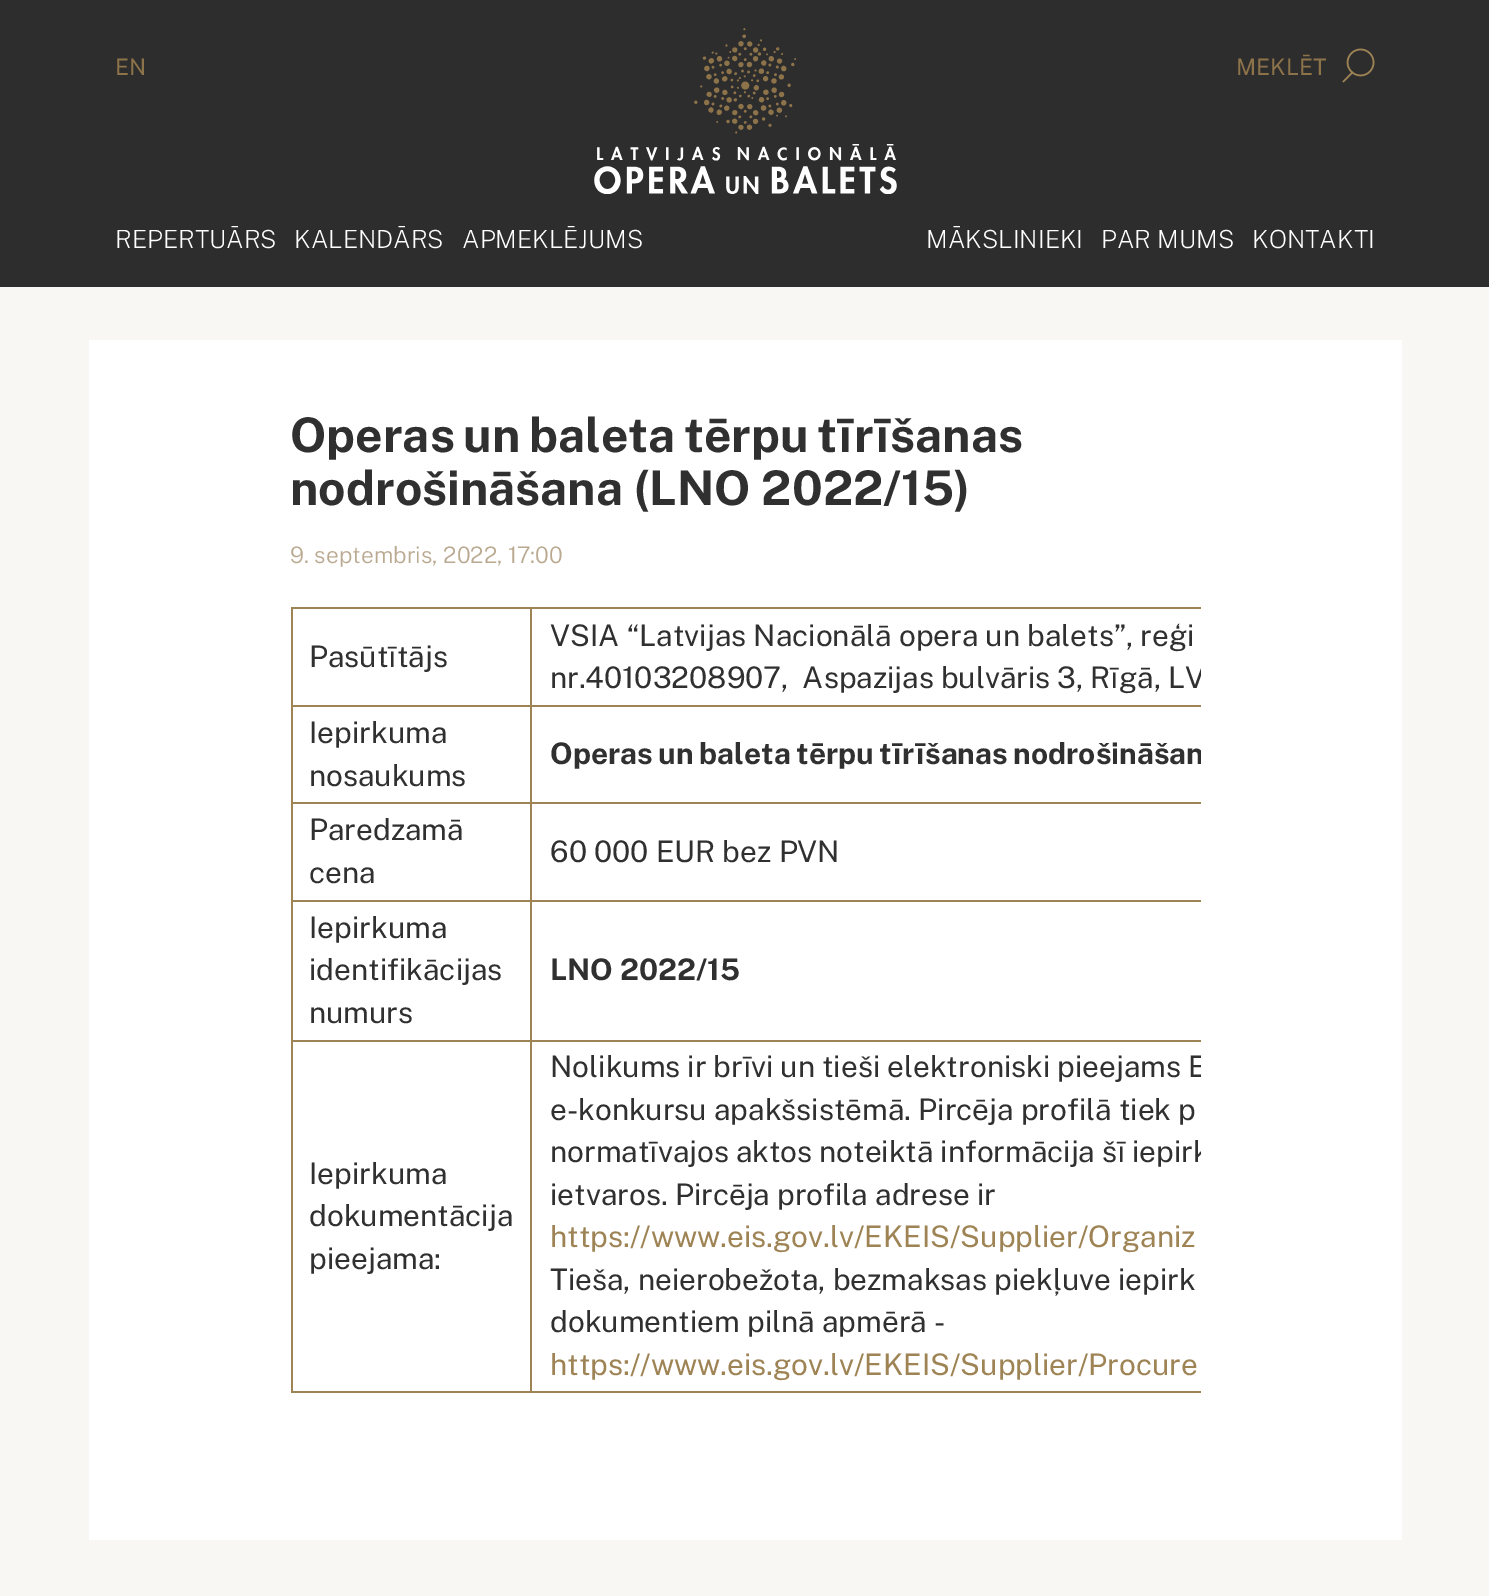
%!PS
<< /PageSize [1489 1596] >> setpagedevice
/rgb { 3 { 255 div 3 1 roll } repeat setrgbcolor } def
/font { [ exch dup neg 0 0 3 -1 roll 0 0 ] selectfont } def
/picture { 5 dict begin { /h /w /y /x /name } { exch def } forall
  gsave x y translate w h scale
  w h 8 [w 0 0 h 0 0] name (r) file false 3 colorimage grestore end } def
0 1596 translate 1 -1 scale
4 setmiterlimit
249 247 243 rgb
0 0 1489 1596 rectfill
45 45 45 rgb
0 0 1489 287 rectfill
(img/1.rgb) 1342 48 33 35 picture
(img/2.rgb) 594 28 303 166 picture
[
  [89 340 1313 1200 255 255 255]
  [530 607 671 2 158 131 85]
  [530 705 671 2 158 131 85]
  [530 802 671 2 158 131 85]
  [530 900 671 2 158 131 85]
  [530 1040 671 2 158 131 85]
  [530 1391 671 2 158 131 85]
  [530 1040 2 353 158 131 85]
  [291 1040 241 2 158 131 85]
  [530 900 2 141 158 131 85]
  [291 900 241 2 158 131 85]
  [530 802 2 99 158 131 85]
  [291 802 241 2 158 131 85]
  [530 705 2 98 158 131 85]
  [291 705 241 2 158 131 85]
  [530 607 2 100 158 131 85]
  [291 607 241 2 158 131 85]
  [291 1391 241 2 158 131 85]
  [291 1040 2 353 158 131 85]
  [291 900 2 141 158 131 85]
  [291 802 2 99 158 131 85]
  [291 705 2 98 158 131 85]
  [291 607 2 100 158 131 85]
] { aload pop rgb rectfill } forall
/PublicSans-Regular 22.75 font
141 115 74 rgb
115 75 moveto (EN) show
1236 75 moveto (MEKLĒT) show
/PublicSans-ExtraLight 25 font
255 255 255 rgb
[
  [(REPERTUĀRS) 115 248]
  [(KALENDĀRS) 294 248]
  [(APMEKLĒJUMS) 462 248]
  [(MĀKSLINIEKI) 926 248]
  [(PAR MUMS) 1101 248]
  [(KONTAKTI) 1252 248]
] { aload pop moveto show } forall
/PublicSans-Bold 47.75 font
48 48 48 rgb
290 452 moveto -2 0 32 (Operas un baleta tērpu tīrīšanas) widthshow
290 505 moveto (nodrošināšana \(LNO 2022/15\)) show
/PublicSans-Light 22.75 font
187 170 146 rgb
290 563 moveto (9. septembris, 2022, 17:00) show
/PublicSans-Regular 29.75 font
48 48 48 rgb
309 667 moveto (Pasūtītājs) show
550 646 moveto (VSIA “Latvijas Nacionālā opera un balets”, reģi) show
gsave
291 607 910 786 rectclip
550 688 moveto -0.25 0 32 (nr.40103208907,  Aspazijas bulvāris 3, Rīgā, LV) widthshow
grestore
309 743 moveto (Iepirkuma) show
309 786 moveto (nosaukums) show
gsave
291 607 910 786 rectclip
/PublicSans-Bold 29.75 font
550 764 moveto -1 0 32 (Operas un baleta tērpu tīrīšanas nodrošināšan) widthshow
grestore
[
  [(Paredzamā) 309 840]
  [(cena) 309 883]
  [(60 000 EUR bez PVN) 550 862]
  [(Iepirkuma) 309 938]
  [(identifikācijas) 309 980]
  [(numurs) 309 1023]
] { aload pop moveto show } forall
/PublicSans-Bold 29.75 font
550 980 moveto (LNO 2022/15) show
/PublicSans-Regular 29.75 font
[
  [(Iepirkuma) 309 1184]
  [(dokumentācija) 309 1226]
  [(pieejama:) 309 1269]
] { aload pop moveto show } forall
gsave
291 607 910 786 rectclip
550 1077 moveto -0.25 0 32 (Nolikums ir brīvi un tieši elektroniski pieejams E) widthshow
grestore
550 1120 moveto (e-konkursu apakšsistēmā. Pircēja profilā tiek p) show
gsave
291 607 910 786 rectclip
550 1162 moveto -0.5 0 32 (normatīvajos aktos noteiktā informācija šī iepirk) widthshow
grestore
550 1205 moveto (ietvaros. Pircēja profila adrese ir) show
158 131 85 rgb
550 1247 moveto (https://www.eis.gov.lv/EKEIS/Supplier/Organiz) show
48 48 48 rgb
550 1290 moveto (Tieša, neierobežota, bezmaksas piekļuve iepirk) show
550 1332 moveto (dokumentiem pilnā apmērā -) show
158 131 85 rgb
550 1375 moveto (https://www.eis.gov.lv/EKEIS/Supplier/Procure) show
showpage
